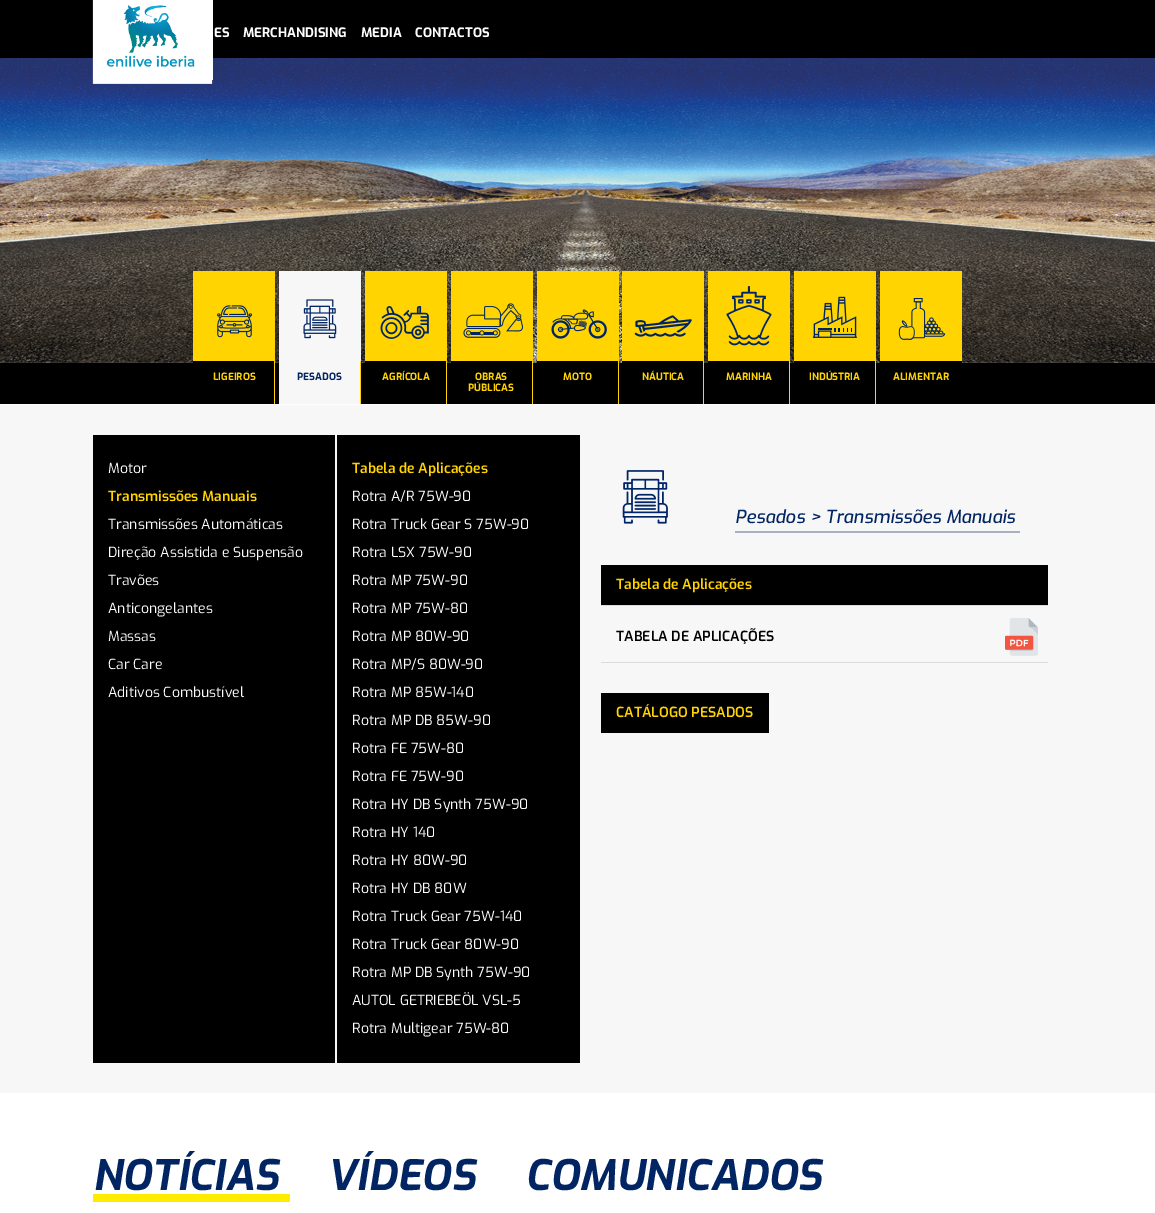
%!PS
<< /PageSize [1155 1213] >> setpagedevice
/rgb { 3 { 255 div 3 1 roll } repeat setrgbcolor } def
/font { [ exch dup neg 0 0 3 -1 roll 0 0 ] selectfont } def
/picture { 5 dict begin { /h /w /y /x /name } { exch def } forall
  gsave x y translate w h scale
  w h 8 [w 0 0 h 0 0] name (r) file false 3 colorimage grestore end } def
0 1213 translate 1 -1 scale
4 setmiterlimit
255 255 255 rgb
0 0 1155 1213 rectfill
0 0 0 rgb
0 0 1155 58 rectfill
(img/2.rgb) 0 58 1155 305 picture
255 255 255 rgb
93 0 120 80 rectfill
(img/1.rgb) 92 0 121 84 picture
0 0 0 rgb
0 363 1155 41 rectfill
255 212 1 rgb
193 271 82 90 rectfill
(img/3.rgb) 217 305 35 33 picture
[
  [193 361 81 2 0 0 0]
  [274 361 1 43 255 212 1]
  [279 271 82 90 247 247 247]
] { aload pop rgb rectfill } forall
(img/4.rgb) 303 299 34 40 picture
[
  [279 361 81 43 247 247 247]
  [360 361 1 43 255 212 1]
  [365 271 82 90 255 212 1]
] { aload pop rgb rectfill } forall
(img/5.rgb) 380 306 49 34 picture
[
  [365 361 81 2 0 0 0]
  [446 361 1 43 255 212 1]
  [451 271 82 90 255 212 1]
] { aload pop rgb rectfill } forall
(img/6.rgb) 463 303 61 35 picture
[
  [451 361 81 2 0 0 0]
  [532 361 1 43 255 212 1]
  [537 271 82 90 255 212 1]
] { aload pop rgb rectfill } forall
(img/7.rgb) 551 309 56 30 picture
[
  [537 361 81 2 0 0 0]
  [618 361 1 43 255 212 1]
  [622 271 82 90 255 212 1]
] { aload pop rgb rectfill } forall
(img/8.rgb) 634 315 58 22 picture
[
  [622 361 81 2 0 0 0]
  [703 361 1 43 255 212 1]
  [708 271 82 90 255 212 1]
] { aload pop rgb rectfill } forall
(img/9.rgb) 726 286 46 60 picture
[
  [708 361 81 2 0 0 0]
  [789 361 1 43 255 212 1]
  [794 271 82 90 255 212 1]
] { aload pop rgb rectfill } forall
(img/10.rgb) 812 296 45 42 picture
[
  [794 361 81 2 0 0 0]
  [875 361 1 43 255 212 1]
  [880 271 82 90 255 212 1]
] { aload pop rgb rectfill } forall
(img/11.rgb) 898 298 48 42 picture
[
  [880 361 82 2 0 0 0]
  [0 405 1155 688 247 247 247]
  [93 435 242 628 0 0 0]
  [337 435 243 628 0 0 0]
] { aload pop rgb rectfill } forall
(img/12.rgb) 622 470 46 54 picture
[
  [735 531 285 2 170 176 191]
  [601 565 447 40 0 0 0]
  [601 605 447 1 220 220 220]
  [601 662 447 1 220 220 220]
] { aload pop rgb rectfill } forall
(img/13.rgb) 1005 618 33 38 picture
0 0 0 rgb
601 693 168 40 rectfill
255 237 0 rgb
93 1194 197 8 rectfill
/Exo-Bold 13 font
255 255 255 rgb
[
  [(ES) 214 37]
  [(MERCHANDISING) 243 37]
  [(MEDIA) 361 37]
  [(CONTACTOS) 415 37]
] { aload pop moveto show } forall
/Exo-Bold 10 font
255 212 1 rgb
213 380 moveto (LIGEIROS) show
1 36 99 rgb
297 380 moveto (PESADOS) show
255 212 1 rgb
[
  [(AGRÍCOLA) 382 380]
  [(OBRAS) 475 380]
  [(PÚBLICAS) 468 391]
  [(MOTO) 563 380]
  [(NÁUTICA) 642 380]
  [(MARINHA) 726 380]
  [(INDÚSTRIA) 809 380]
  [(ALIMENTAR) 893 380]
] { aload pop moveto show } forall
/Exo-Regular 14 font
255 255 255 rgb
108 473 moveto (Motor) show
/Exo-SemiBold 14 font
255 212 1 rgb
108 501 moveto (Transmissões Manuais) show
/Exo-Regular 14 font
255 255 255 rgb
[
  [(Transmissões Automáticas) 108 529]
  [(Direção Assistida e Suspensão) 108 557]
  [(Travões) 108 585]
  [(Anticongelantes) 108 613]
  [(Massas) 108 641]
  [(Car Care) 108 669]
  [(Aditivos Combustível) 108 697]
] { aload pop moveto show } forall
/Exo-SemiBold 14 font
255 212 1 rgb
352 473 moveto (Tabela de Aplicações) show
/Exo-Regular 14 font
255 255 255 rgb
[
  [(Rotra A/R 75W-90) 352 501]
  [(Rotra Truck Gear S 75W-90) 352 529]
  [(Rotra LSX 75W-90) 352 557]
  [(Rotra MP 75W-90) 352 585]
  [(Rotra MP 75W-80) 352 613]
  [(Rotra MP 80W-90) 352 641]
  [(Rotra MP/S 80W-90) 352 669]
  [(Rotra MP 85W-140) 352 697]
  [(Rotra MP DB 85W-90) 352 725]
  [(Rotra FE 75W-80) 352 753]
  [(Rotra FE 75W-90) 352 781]
  [(Rotra HY DB Synth 75W-90) 352 809]
  [(Rotra HY 140) 352 837]
  [(Rotra HY 80W-90) 352 865]
  [(Rotra HY DB 80W) 352 893]
  [(Rotra Truck Gear 75W-140) 352 921]
  [(Rotra Truck Gear 80W-90) 352 949]
  [(Rotra MP DB Synth 75W-90) 352 977]
  [(AUTOL GETRIEBEÖL VSL-5) 352 1005]
  [(Rotra Multigear 75W-80) 352 1033]
] { aload pop moveto show } forall
/Exo-MediumItalic 18 font
1 36 99 rgb
[
  [(Pesados) 735 523]
  [(>) 810 523]
  [(Transmissões Manuais) 825 523]
] { aload pop moveto show } forall
/Exo-SemiBold 14 font
255 212 1 rgb
616 589 moveto (Tabela de Aplicações) show
0 0 0 rgb
616 641 moveto (TABELA DE APLICAÇÕES) show
255 212 1 rgb
616 717 moveto (CATÁLOGO PESADOS) show
/Exo-BoldItalic 42 font
1 36 99 rgb
[
  [(NOTÍCIAS) 93 1190]
  [(VÍDEOS) 327 1190]
  [(COMUNICADOS) 525 1190]
] { aload pop moveto show } forall
showpage
